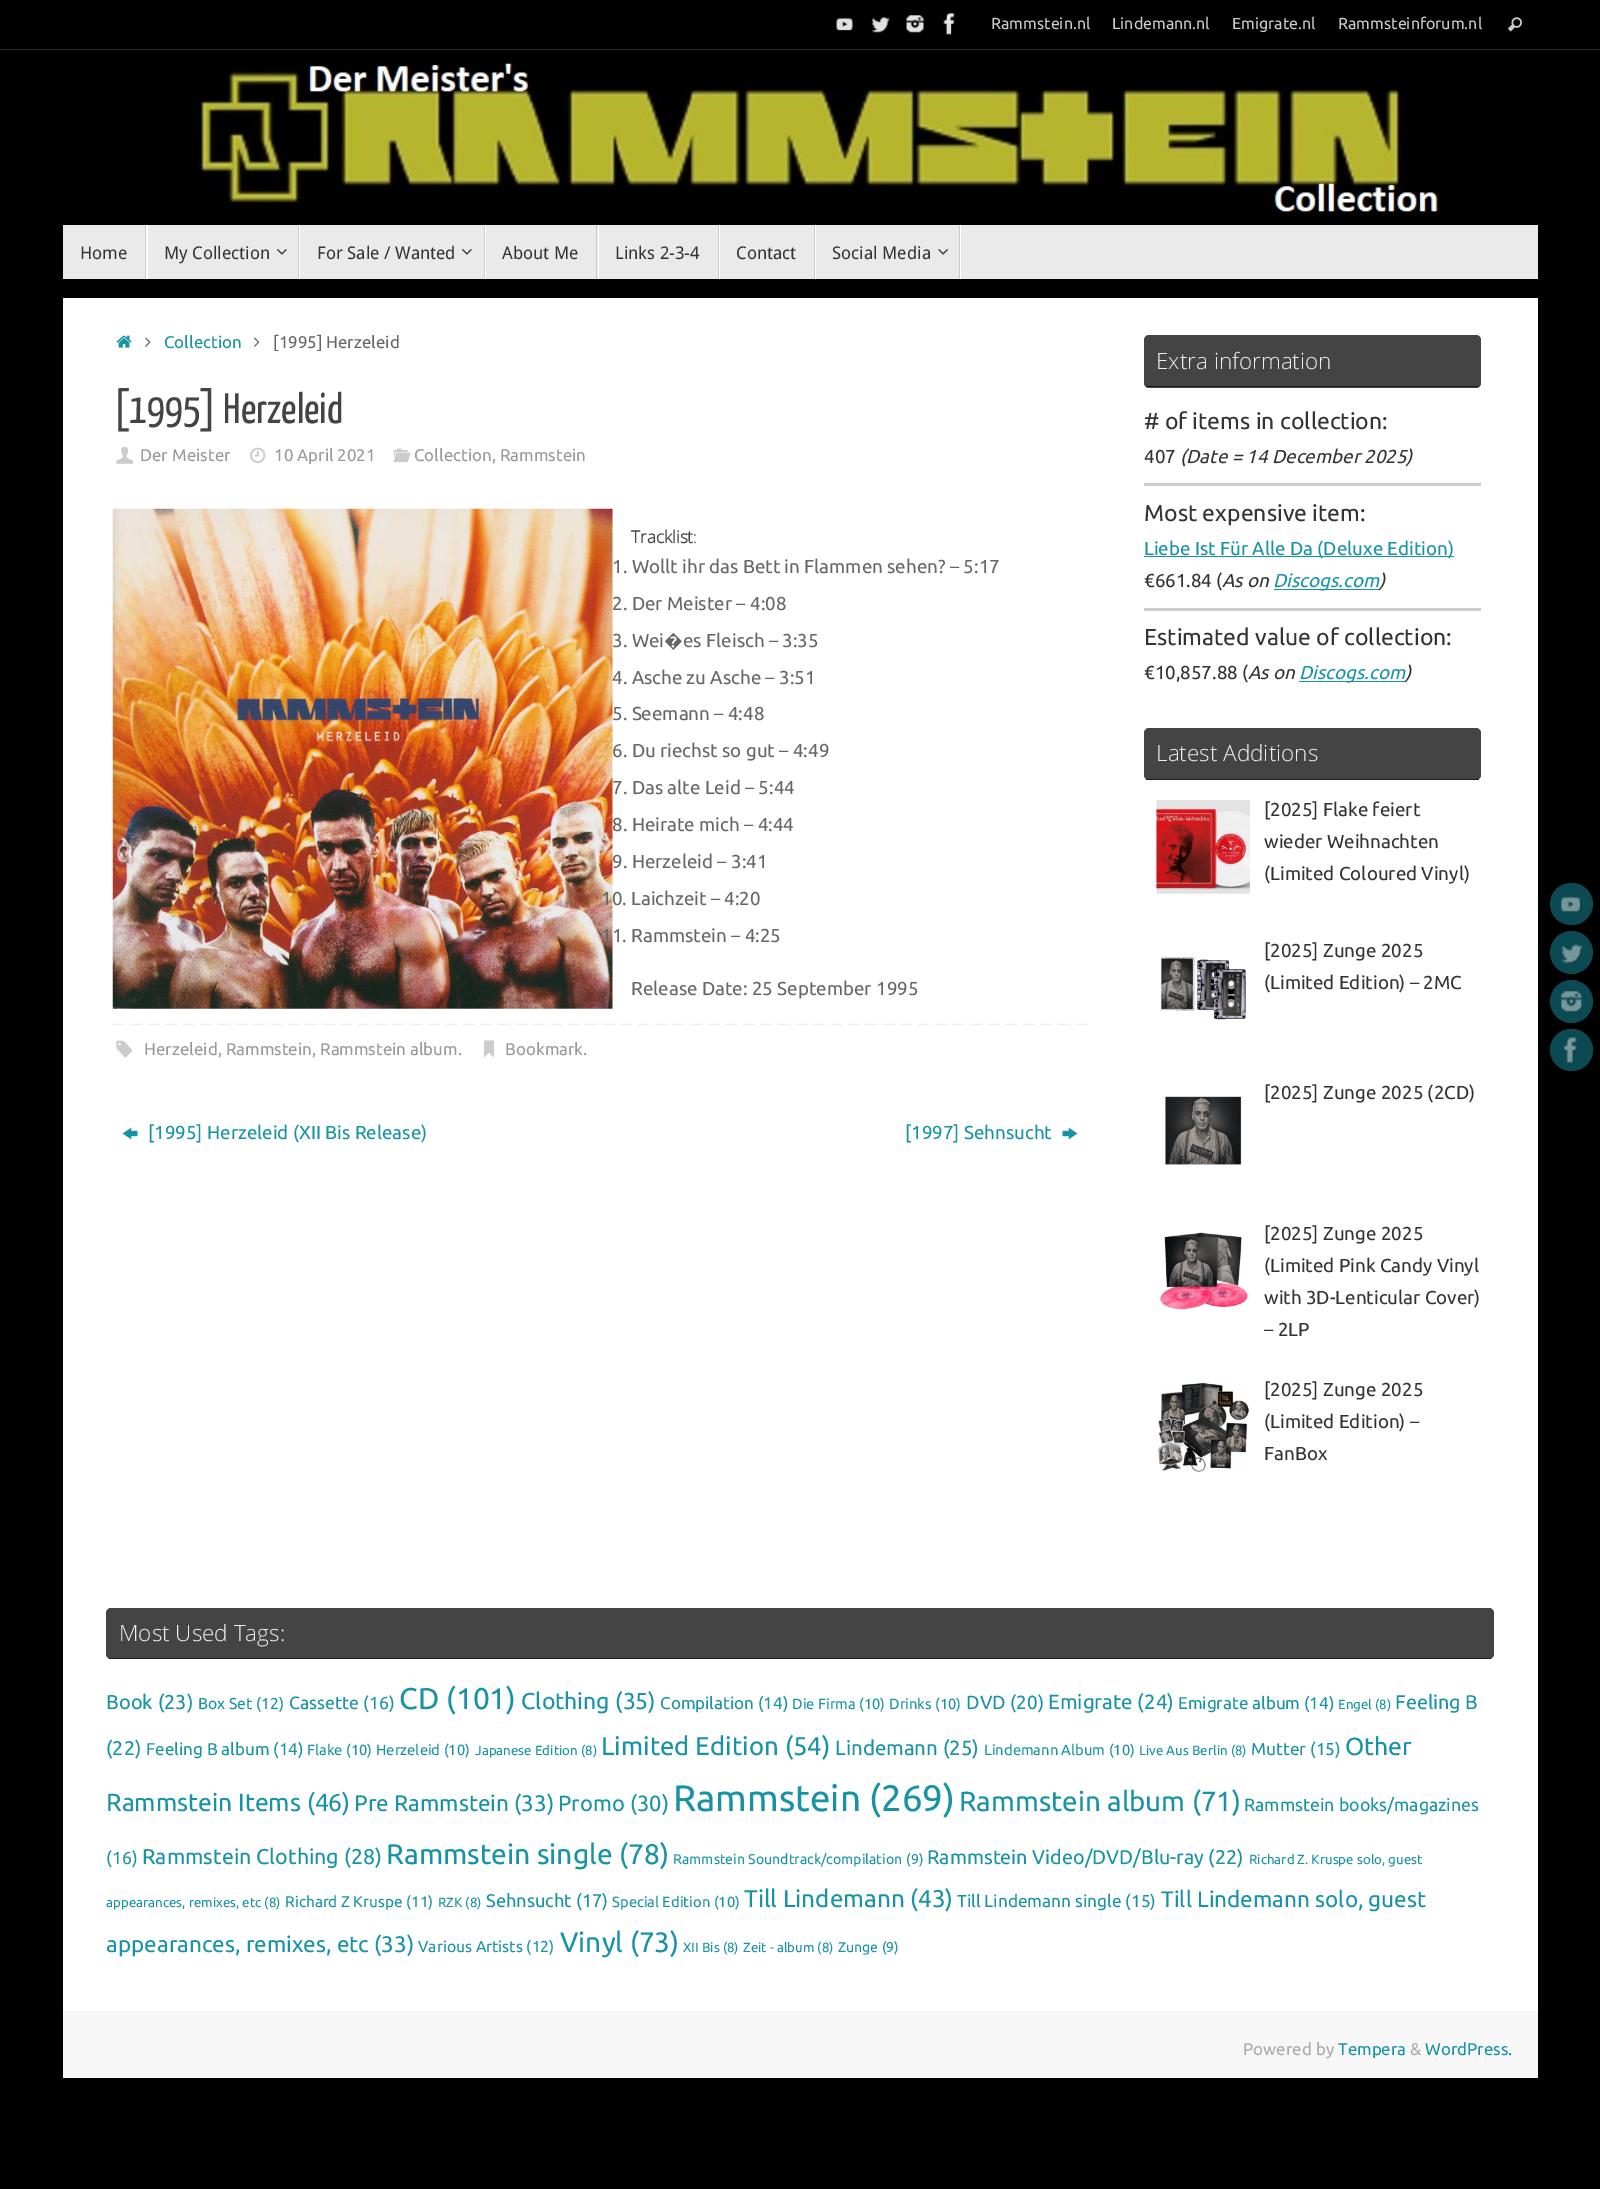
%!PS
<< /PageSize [1600 2189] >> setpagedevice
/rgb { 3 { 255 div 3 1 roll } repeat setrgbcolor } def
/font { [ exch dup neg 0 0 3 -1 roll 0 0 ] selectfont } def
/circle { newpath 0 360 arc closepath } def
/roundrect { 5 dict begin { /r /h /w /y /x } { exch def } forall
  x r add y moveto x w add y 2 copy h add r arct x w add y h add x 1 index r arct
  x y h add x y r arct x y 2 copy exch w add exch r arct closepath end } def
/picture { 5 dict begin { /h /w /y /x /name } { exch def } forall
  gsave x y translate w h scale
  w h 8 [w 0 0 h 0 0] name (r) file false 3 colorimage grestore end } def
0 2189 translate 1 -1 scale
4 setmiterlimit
0 0 0 rgb
0 0 1600 2189 rectfill
40 40 40 rgb
0 49 1600 1 rectfill
(img/1.rgb) 836 18 17 13 picture
(img/2.rgb) 871 17 19 16 picture
(img/3.rgb) 906 15 18 18 picture
(img/4.rgb) 943 13 12 22 picture
(img/5.rgb) 1507 17 15 15 picture
(img/6.rgb) 191 50 1251 170 picture
234 234 234 rgb
63 225 1475 54 rectfill
255 255 255 rgb
64 279 moveto 148 279 lineto 148 225 lineto 146 225 lineto 146 279 lineto closepath fill
204 204 204 rgb
145 225 1 54 rectfill
255 255 255 rgb
148 279 moveto 300 279 lineto 300 225 lineto 299 225 lineto 299 279 lineto closepath fill
204 204 204 rgb
298 225 1 54 rectfill
(img/7.rgb) 277 249 10 6 picture
255 255 255 rgb
300 279 moveto 486 279 lineto 486 225 lineto 485 225 lineto 485 279 lineto closepath fill
204 204 204 rgb
484 225 1 54 rectfill
(img/7.rgb) 462 249 10 6 picture
255 255 255 rgb
486 279 moveto 599 279 lineto 599 225 lineto 598 225 lineto 598 279 lineto closepath fill
204 204 204 rgb
596 225 1 54 rectfill
255 255 255 rgb
599 279 moveto 720 279 lineto 720 225 lineto 719 225 lineto 719 279 lineto closepath fill
204 204 204 rgb
718 225 1 54 rectfill
255 255 255 rgb
720 279 moveto 816 279 lineto 816 225 lineto 815 225 lineto 815 279 lineto closepath fill
204 204 204 rgb
814 225 1 54 rectfill
255 255 255 rgb
816 279 moveto 961 279 lineto 961 225 lineto 960 225 lineto 960 279 lineto closepath fill
204 204 204 rgb
959 225 1 54 rectfill
(img/8.rgb) 938 249 10 6 picture
255 255 255 rgb
63 298 1475 1713 rectfill
(img/9.rgb) 116 335 16 13 picture
(img/10.rgb) 145 337 6 10 picture
(img/11.rgb) 253 337 7 10 picture
(img/12.rgb) 116 447 18 17 picture
(img/13.rgb) 250 447 16 16 picture
(img/14.rgb) 393 448 18 15 picture
(img/15.rgb) 112 508 501 501 picture
(img/16.rgb) 113 1023 974 2 picture
(img/17.rgb) 116 1040 17 18 picture
204 204 204 rgb
484 1056 moveto 484 1040.5 lineto 494 1040.5 lineto 494 1057.5 lineto 489 1052.5 lineto 484 1057.5 lineto closepath fill
(img/18.rgb) 122 1127 16 13 picture
(img/19.rgb) 1062 1127 16 13 picture
68 68 68 rgb
1144 335 337 53 5 roundrect fill
[
  [1146 386 333 1 28 28 28]
  [1144 483 337 3 204 204 204]
  [1144 556 310 1 22 147 165]
  [1274 589 106 1 22 147 165]
  [1144 608 337 3 204 204 204]
  [1299 681 106 1 22 147 165]
] { aload pop rgb rectfill } forall
68 68 68 rgb
1144 728 337 52 5 roundrect fill
28 28 28 rgb
1146 779 333 1 rectfill
(img/20.rgb) 1156 800 94 94 picture
(img/21.rgb) 1160 957 86 63 picture
(img/22.rgb) 1165 1096 77 69 picture
(img/23.rgb) 1160 1232 88 78 picture
(img/24.rgb) 1158 1382 91 90 picture
68 68 68 rgb
106 1608 1388 51 5 roundrect fill
28 28 28 rgb
109 1658 1382 1 rectfill
247 247 247 rgb
63 2011 1475 67 rectfill
11 74 83 rgb
1550 883 43 42 21 roundrect fill
(img/25.rgb) 1561 897 21 16 picture
1571.5 952.5 21.5 circle fill
(img/26.rgb) 1561 944 22 20 picture
1571.5 1001.5 21.5 circle fill
(img/27.rgb) 1561 991 21 22 picture
1550 1029 43 42 21 roundrect fill
(img/28.rgb) 1563 1037 14 27 picture
/Ubuntu-Regular 16 font
204 204 204 rgb
[
  [(Rammstein.nl) 991 29]
  [(Lindemann.nl) 1112 29]
  [(Emigrate.nl) 1232 29]
  [(Rammsteinforum.nl) 1338 29]
] { aload pop moveto show } forall
/DroidSans-Regular 17.5 font
51 51 51 rgb
[
  [(Home) 80 259]
  [(My Collection) 164 259]
  [(For Sale / Wanted) 317 259]
  [(About Me) 502 259]
  [(Links 2-3-4) 615 259]
  [(Contact) 736 259]
  [(Social Media) 832 259]
] { aload pop moveto show } forall
/Ubuntu-Regular 16.9 font
22 147 165 rgb
164 348 moveto (Collection) show
102 102 102 rgb
273 348 moveto ([1995] Herzeleid) show
/YanoneKaffeesatz-Regular 42.5 font
68 68 68 rgb
113 423 moveto ([1995] Herzeleid) show
/Ubuntu-Regular 16.9 font
153 153 153 rgb
[
  [(Der Meister) 140 461]
  [(10 April 2021) 274 461]
  [(Collection, Rammstein) 414 461]
] { aload pop moveto show } forall
/OpenSans-Bold 17 font
68 68 68 rgb
631 543 moveto (Tracklist) show
/OpenSans-Light 17 font
693 543 moveto (:) show
/Ubuntu-Regular 18.75 font
102 102 102 rgb
[
  [(1. Wollt ihr das Bett in Flammen sehen? – 5:17) 612 573]
  [(2. Der Meister – 4:08) 612 610]
  [(3. Wei) 612 647]
] { aload pop moveto show } forall
/NotoSans-Regular 18.75 font
664 647 moveto (�) show
/Ubuntu-Regular 18.75 font
[
  [(es Fleisch – 3:35) 683 647]
  [(4. Asche zu Asche – 3:51) 612 684]
  [(5. Seemann – 4:48) 612 720]
  [(6. Du riechst so gut – 4:49) 612 757]
  [(7. Das alte Leid – 5:44) 612 794]
  [(8. Heirate mich – 4:44) 612 831]
  [(9. Herzeleid – 3:41) 612 868]
  [(10. Laichzeit – 4:20) 601 905]
  [(11. Rammstein – 4:25) 601 942]
  [(Release Date: 25 September 1995) 631 995]
] { aload pop moveto show } forall
/Ubuntu-Regular 16.9 font
153 153 153 rgb
144 1055 moveto (Herzeleid, Rammstein, Rammstein album.) show
505 1055 moveto (Bookmark.) show
/Ubuntu-Regular 18.75 font
22 147 165 rgb
148 1139 moveto ([1995] Herzeleid \(XII Bis Release\)) show
905 1139 moveto ([1997] Sehnsucht) show
/OpenSans-Light 22.5 font
238 238 238 rgb
1156 369 moveto (Extra information) show
/Ubuntu-Regular 23 font
51 51 51 rgb
1144 429 moveto (# of items in collection:) show
/Ubuntu-Regular 18.75 font
1144 463 moveto (407) show
/Ubuntu-Italic 18.75 font
1180 463 moveto (\(Date = 14 December 2025\)) show
/Ubuntu-Regular 23 font
1144 521 moveto (Most expensive item:) show
/Ubuntu-Regular 18.75 font
22 147 165 rgb
1144 555 moveto (Liebe Ist Für Alle Da \(Deluxe Edition\)) show
51 51 51 rgb
1144 587 moveto (€661.84 \() show
/Ubuntu-Italic 18.75 font
1222 587 moveto (As on) show
22 147 165 rgb
1273 587 moveto (Discogs.com) show
51 51 51 rgb
1379 587 moveto (\)) show
/Ubuntu-Regular 23 font
1144 645 moveto (Estimated value of collection:) show
/Ubuntu-Regular 18.75 font
1144 679 moveto (€10,857.88 \() show
/Ubuntu-Italic 18.75 font
1248 679 moveto (As on) show
22 147 165 rgb
1299 679 moveto (Discogs.com) show
51 51 51 rgb
1405 679 moveto (\)) show
/OpenSans-Light 22.5 font
238 238 238 rgb
1156 761 moveto (Latest Additions) show
/Ubuntu-Regular 18.75 font
51 51 51 rgb
[
  [([2025] Flake feiert) 1264 816]
  [(wieder Weihnachten) 1264 848]
  [(\(Limited Coloured Vinyl\)) 1264 880]
  [([2025] Zunge 2025) 1264 957]
  [(\(Limited Edition\) – 2MC) 1264 989]
  [([2025] Zunge 2025 \(2CD\)) 1264 1099]
  [([2025] Zunge 2025) 1264 1240]
  [(\(Limited Pink Candy Vinyl) 1264 1272]
  [(with 3D-Lenticular Cover\)) 1264 1304]
  [(– 2LP) 1264 1336]
  [([2025] Zunge 2025) 1264 1396]
  [(\(Limited Edition\) –) 1264 1428]
  [(FanBox) 1264 1460]
] { aload pop moveto show } forall
/OpenSans-Light 22.5 font
238 238 238 rgb
119 1641 moveto (Most Used Tags:) show
/Ubuntu-Regular 20 font
22 147 165 rgb
106 1709 moveto (Book \(23\)) show
/Ubuntu-Regular 15.75 font
198 1709 moveto (Box Set \(12\)) show
/Ubuntu-Regular 17.75 font
289 1709 moveto (Cassette \(16\)) show
/Ubuntu-Regular 30 font
399 1709 moveto (CD \(101\)) show
/Ubuntu-Regular 23 font
521 1709 moveto (Clothing \(35\)) show
/Ubuntu-Regular 17 font
660 1709 moveto (Compilation \(14\)) show
/Ubuntu-Regular 14.75 font
792 1709 moveto (Die Firma \(10\)) show
889 1709 moveto (Drinks \(10\)) show
/Ubuntu-Regular 19 font
966 1709 moveto (DVD \(20\)) show
/Ubuntu-Regular 20.5 font
1048 1709 moveto (Emigrate \(24\)) show
/Ubuntu-Regular 17 font
1178 1709 moveto (Emigrate album \(14\)) show
/Ubuntu-Regular 13.3 font
1338 1709 moveto (Engel \(8\)) show
/Ubuntu-Regular 19.75 font
1395 1709 moveto (Feeling B) show
106 1755 moveto (\(22\)) show
/Ubuntu-Regular 17 font
146 1755 moveto (Feeling B album \(14\)) show
/Ubuntu-Regular 14.75 font
307 1755 moveto (Flake \(10\)) show
376 1755 moveto (Herzeleid \(10\)) show
/Ubuntu-Regular 13.3 font
475 1755 moveto (Japanese Edition \(8\)) show
/Ubuntu-Regular 25.75 font
601 1755 moveto (Limited Edition \(54\)) show
/Ubuntu-Regular 20.5 font
835 1755 moveto (Lindemann \(25\)) show
/Ubuntu-Regular 14.75 font
984 1755 moveto (Lindemann Album \(10\)) show
/Ubuntu-Regular 13.3 font
1139 1755 moveto (Live Aus Berlin \(8\)) show
/Ubuntu-Regular 17.25 font
1251 1755 moveto (Mutter \(15\)) show
/Ubuntu-Regular 24.75 font
1345 1755 moveto (Other) show
106 1811 moveto (Rammstein Items \(46\)) show
/Ubuntu-Regular 22.5 font
354 1811 moveto (Pre Rammstein \(33\)) show
/Ubuntu-Regular 22 font
558 1811 moveto (Promo \(30\)) show
/Ubuntu-Regular 36.75 font
673 1811 moveto (Rammstein \(269\)) show
/Ubuntu-Regular 27.75 font
959 1811 moveto (Rammstein album \(71\)) show
/Ubuntu-Regular 17.75 font
1244 1811 moveto (Rammstein books/magazines) show
106 1864 moveto (\(16\)) show
/Ubuntu-Regular 21.4 font
142 1864 moveto (Rammstein Clothing \(28\)) show
/Ubuntu-Regular 28.25 font
386 1864 moveto (Rammstein single \(78\)) show
/Ubuntu-Regular 14.1 font
673 1864 moveto (Rammstein Soundtrack/compilation) show
906 1864 moveto (\(9\)) show
/Ubuntu-Regular 19.75 font
927 1864 moveto (Rammstein Video/DVD/Blu-ray \(22\)) show
/Ubuntu-Regular 13.3 font
1249 1864 moveto (Richard Z. Kruspe solo, guest) show
106 1907 moveto (appearances, remixes, etc \(8\)) show
/Ubuntu-Regular 15.4 font
285 1907 moveto (Richard Z Kruspe \(11\)) show
/Ubuntu-Regular 13.3 font
438 1907 moveto (RZK \(8\)) show
/Ubuntu-Regular 18.25 font
486 1907 moveto (Sehnsucht \(17\)) show
/Ubuntu-Regular 14.75 font
612 1907 moveto (Special Edition \(10\)) show
/Ubuntu-Regular 24.25 font
744 1907 moveto (Till Lindemann \(43\)) show
/Ubuntu-Regular 17.25 font
957 1907 moveto (Till Lindemann single \(15\)) show
/Ubuntu-Regular 22.5 font
1161 1907 moveto (Till Lindemann solo, guest) show
106 1952 moveto (appearances, remixes, etc \(33\)) show
/Ubuntu-Regular 15.75 font
418 1952 moveto (Various Artists \(12\)) show
/Ubuntu-Regular 28 font
560 1952 moveto (Vinyl \(73\)) show
/Ubuntu-Regular 13.3 font
683 1952 moveto (XII Bis \(8\)) show
743 1952 moveto (Zeit - album \(8\)) show
/Ubuntu-Regular 14.1 font
838 1952 moveto (Zunge \(9\)) show
/Ubuntu-Regular 16.9 font
170 170 170 rgb
1243 2055 moveto (Powered by) show
22 147 165 rgb
1338 2055 moveto (Tempera) show
170 170 170 rgb
1410 2055 moveto (&) show
22 147 165 rgb
1425 2055 moveto (WordPress.) show
showpage
